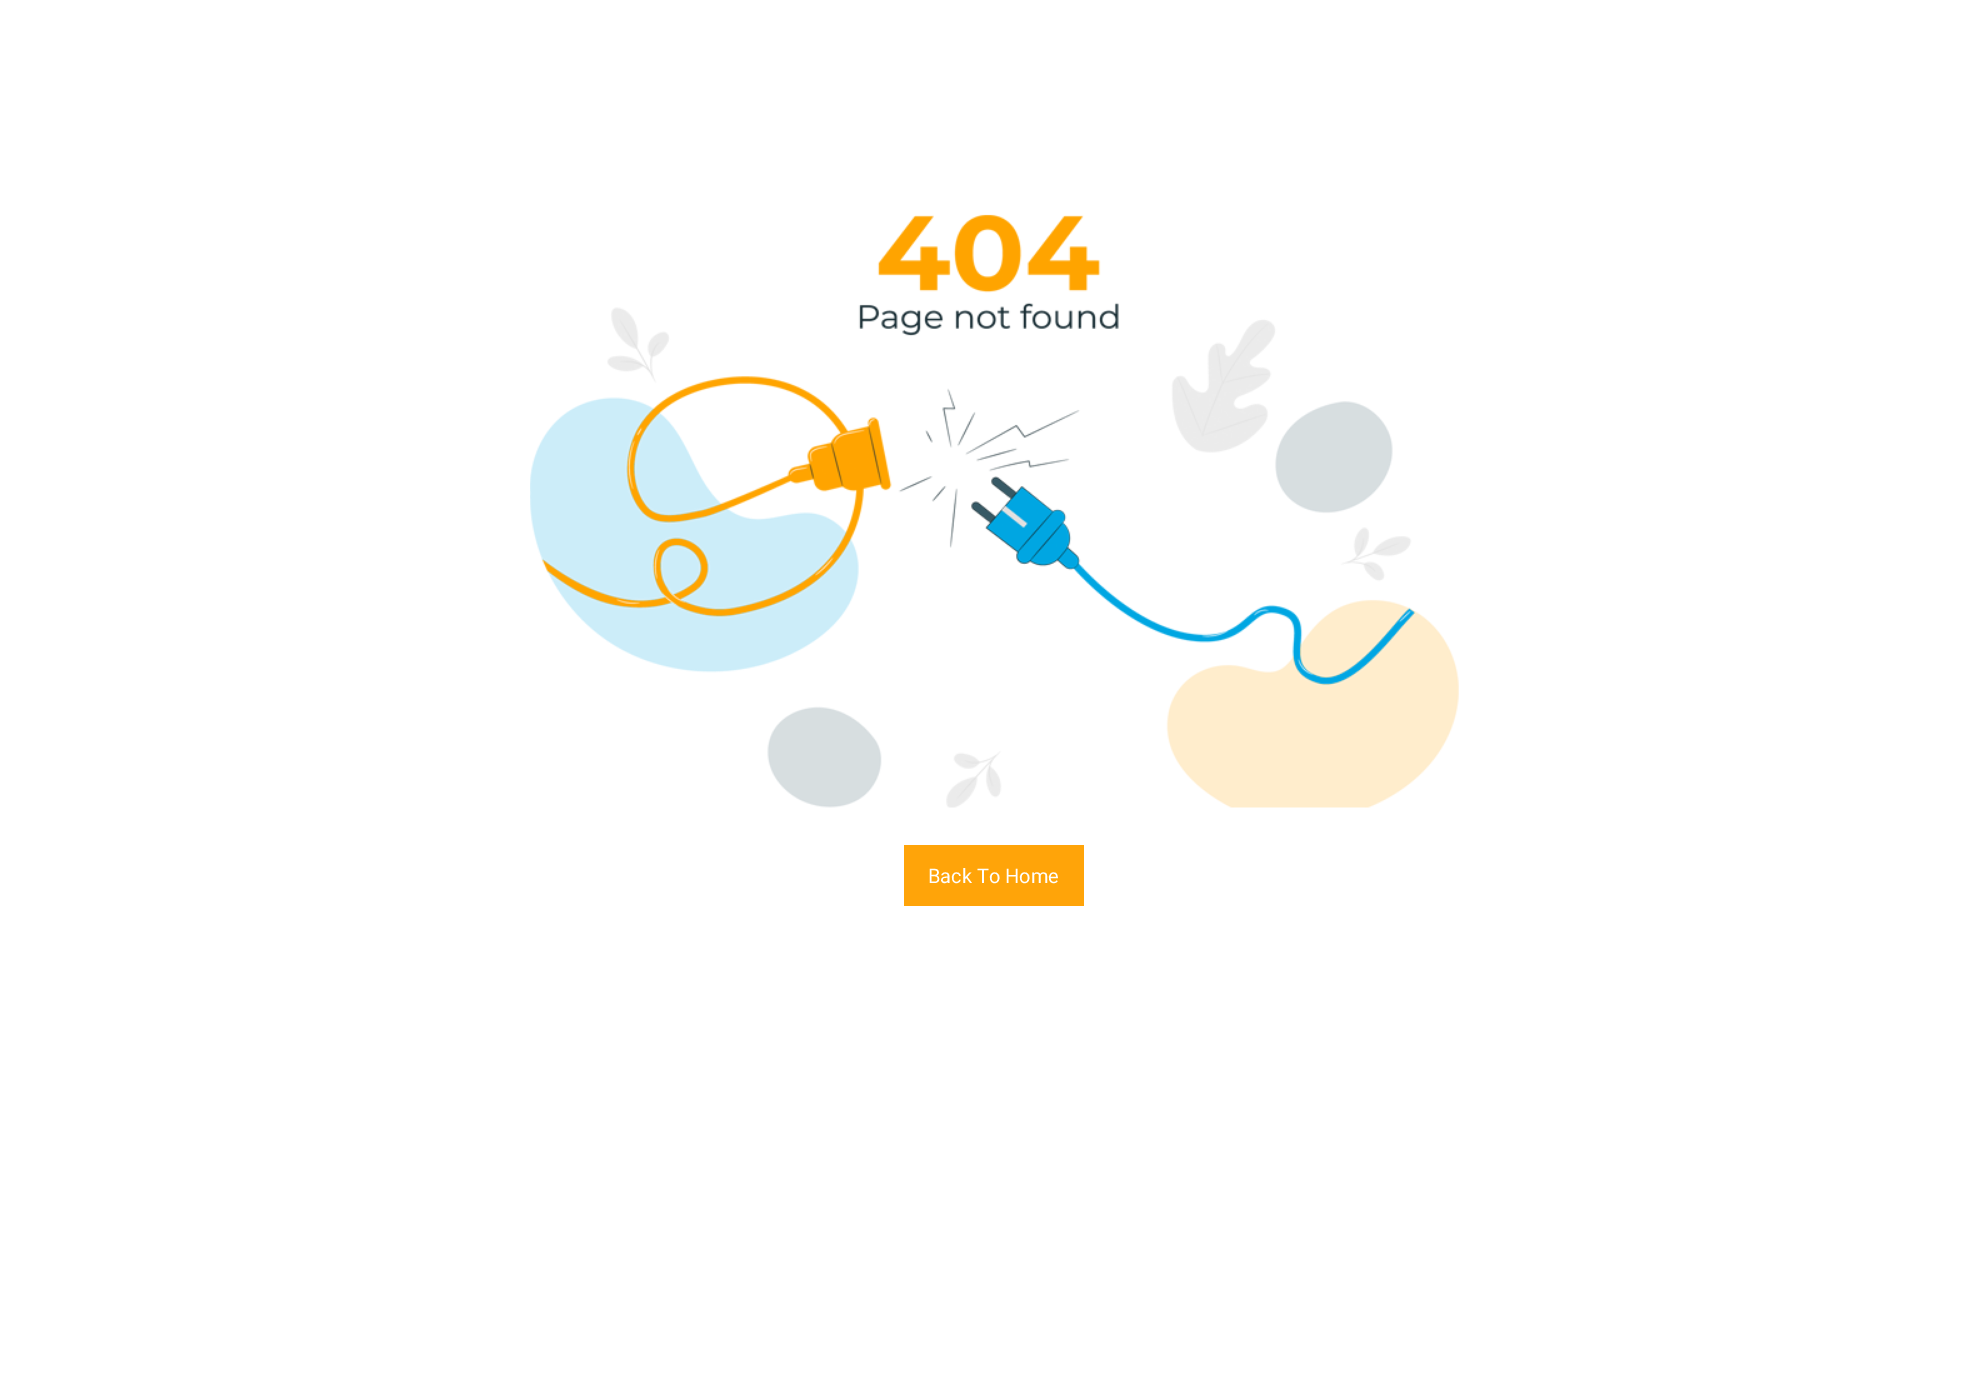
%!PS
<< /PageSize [1987 1388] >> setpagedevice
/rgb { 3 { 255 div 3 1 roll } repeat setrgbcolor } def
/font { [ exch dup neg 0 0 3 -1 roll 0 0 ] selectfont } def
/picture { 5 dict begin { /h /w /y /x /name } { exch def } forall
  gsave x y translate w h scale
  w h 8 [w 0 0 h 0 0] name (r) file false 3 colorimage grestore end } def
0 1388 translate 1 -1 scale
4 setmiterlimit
255 255 255 rgb
0 0 1987 1388 rectfill
(img/1.rgb) 530 214 929 594 picture
255 164 9 rgb
904 845 180 61 rectfill
/Roboto-Regular 20 font
255 255 255 rgb
928 883 moveto (Back To Home) show
showpage
